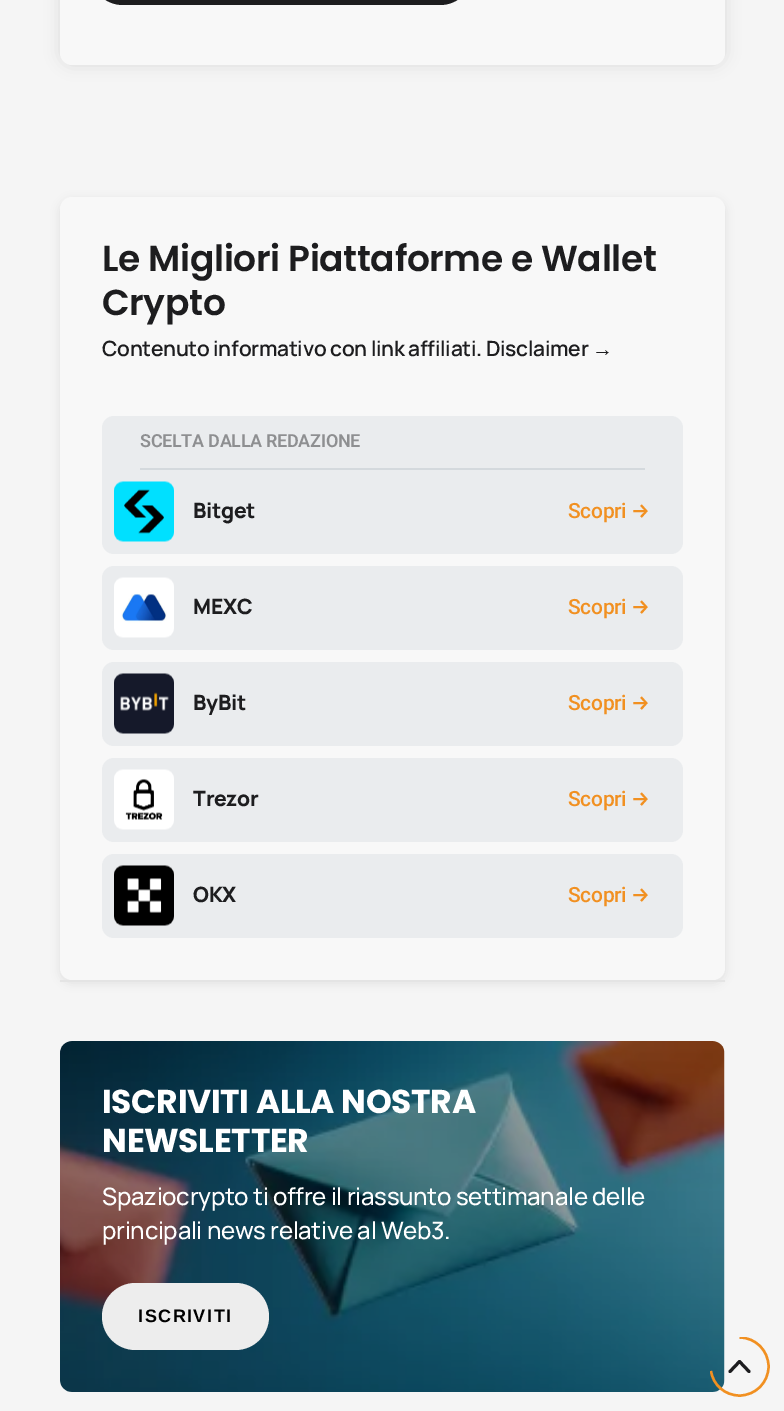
%!PS
<< /PageSize [784 1411] /PageUsesTransparency true >> setpagedevice
/rgb { 3 { 255 div 3 1 roll } repeat setrgbcolor } def
/font { [ exch dup neg 0 0 3 -1 roll 0 0 ] selectfont } def
/alpha { dup .setfillconstantalpha .setstrokeconstantalpha } def
/roundrect { 5 dict begin { /r /h /w /y /x } { exch def } forall
  x r add y moveto x w add y 2 copy h add r arct x w add y h add x 1 index r arct
  x y h add x y r arct x y 2 copy exch w add exch r arct closepath end } def
/shadow { 12 dict begin { /a /b /q /h /w /y /x } { exch def } forall gsave /was 0 def
  9 -2 -9 { dup b mul 4 div /e exch def 1 sub .425 mul 2.718 exch exp 1 add a .99 .min exch div /now exch def
    1 1 now sub 1 was sub div sub alpha /was now def
    w h .min e 2 mul add 0 gt { x e sub y e sub w e 2 mul add h e 2 mul add
      q e add b .6 mul add w h .min 2 div e add .min 0 .max roundrect fill } if } for grestore end } def
/picture { 5 dict begin { /h /w /y /x /name } { exch def } forall
  gsave x y translate w h scale
  w h 8 [w 0 0 h 0 0] name (r) file false 3 colorimage grestore end } def
0 .pushpdf14devicefilter
0 1411 translate 1 -1 scale
4 setmiterlimit
245 245 245 rgb
0 0 784 1411 rectfill
0 0 0 rgb
60 -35 665 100 12 7.5 0.1 shadow
248 248 248 rgb
60 -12 665 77 12 roundrect fill
29 29 31 rgb
90 -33 383 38 33 roundrect fill
0 0 0 rgb
60 200 665 783 12 4.5 0.08 shadow
248 248 248 rgb
60 197 665 783 12 roundrect fill
234 236 238 rgb
102 416 581 138 12 roundrect fill
212 217 221 rgb
140 468 505 2 rectfill
(img/1.rgb) 114 481 60 61 picture
234 236 238 rgb
102 566 581 84 12 roundrect fill
(img/2.rgb) 114 577 60 61 picture
102 662 581 84 12 roundrect fill
(img/3.rgb) 114 673 60 61 picture
102 758 581 84 12 roundrect fill
(img/4.rgb) 114 769 60 61 picture
102 854 581 84 12 roundrect fill
(img/5.rgb) 114 865 60 61 picture
228 228 228 rgb
60 980 665 2 rectfill
248 248 248 rgb
60 1041 665 351 12 roundrect fill
(img/6.rgb) 60 1041 665 351 picture
237 237 237 rgb
102 1283 167 67 33.5 roundrect fill
29 29 31 rgb
3 setlinewidth
1 setlinecap
1 setlinejoin
730 1371.5 moveto 739.5 1361.5 lineto 749 1371.5 lineto stroke
gsave
710 1337 60 60 rectclip
241 144 33 rgb
2.4 setlinewidth
0 setlinecap
0 setlinejoin
739.5 1337.5 moveto 755.5 1337.5 768.5 1350.5 768.5 1366.5 curveto 768.5 1382.5 755.5 1395.5 739.5 1395.5 curveto 725 1395.5 713 1385 711 1371 curveto stroke
grestore
/Poppins-SemiBold 36 font
102 271 moveto -0.35 0 (Le Migliori Piattaforme e Wallet) ashow
102 315 moveto -0.35 0 (Crypto) ashow
/Manrope-ExtraLight 21 font
102 356 moveto -0.3 0 (Contenuto informativo con link affiliati. Disclaimer) ashow
/LiberationSans-Bold 21 font
592 356 moveto -0.3 0 (→) ashow
/Roboto-SemiBold 18 font
142 143 145 rgb
140 447 moveto -0.3 0 (SCELTA DALLA REDAZIONE) ashow
/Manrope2-ExtraLight 21 font
29 29 31 rgb
193 518 moveto -0.3 0 (Bitget) ashow
/Roboto-Medium 21 font
241 144 33 rgb
568 518 moveto -0.3 0 (Scopri) ashow
/FiraSans-Medium 21 font
631 518 moveto -0.3 0 (→) ashow
/Manrope2-ExtraLight 21 font
29 29 31 rgb
193 614 moveto -0.3 0 (MEXC) ashow
/Roboto-Medium 21 font
241 144 33 rgb
568 614 moveto -0.3 0 (Scopri) ashow
/FiraSans-Medium 21 font
631 614 moveto -0.3 0 (→) ashow
/Manrope2-ExtraLight 21 font
29 29 31 rgb
193 710 moveto -0.3 0 (ByBit) ashow
/Roboto-Medium 21 font
241 144 33 rgb
568 710 moveto -0.3 0 (Scopri) ashow
/FiraSans-Medium 21 font
631 710 moveto -0.3 0 (→) ashow
/Manrope2-ExtraLight 21 font
29 29 31 rgb
193 806 moveto -0.3 0 (Trezor) ashow
/Roboto-Medium 21 font
241 144 33 rgb
568 806 moveto -0.3 0 (Scopri) ashow
/FiraSans-Medium 21 font
631 806 moveto -0.3 0 (→) ashow
/Manrope2-ExtraLight 21 font
29 29 31 rgb
193 902 moveto -0.3 0 (OKX) ashow
/Roboto-Medium 21 font
241 144 33 rgb
568 902 moveto -0.3 0 (Scopri) ashow
/FiraSans-Medium 21 font
631 902 moveto -0.3 0 (→) ashow
/Poppins-Bold 33 font
255 255 255 rgb
102 1113 moveto -0.3 0 (ISCRIVITI ALLA NOSTRA) ashow
102 1152 moveto -0.3 0 (NEWSLETTER) ashow
/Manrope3-ExtraLight 24 font
102 1205 moveto -0.3 0 (Spaziocrypto ti offre il riassunto settimanale delle) ashow
102 1239 moveto -0.3 0 (principali news relative al Web3.) ashow
/LiberationSans-Bold 18 font
0 0 0 rgb
138 1322 moveto 1.5 0 (ISCRIVITI) ashow
.poppdf14devicefilter showpage
